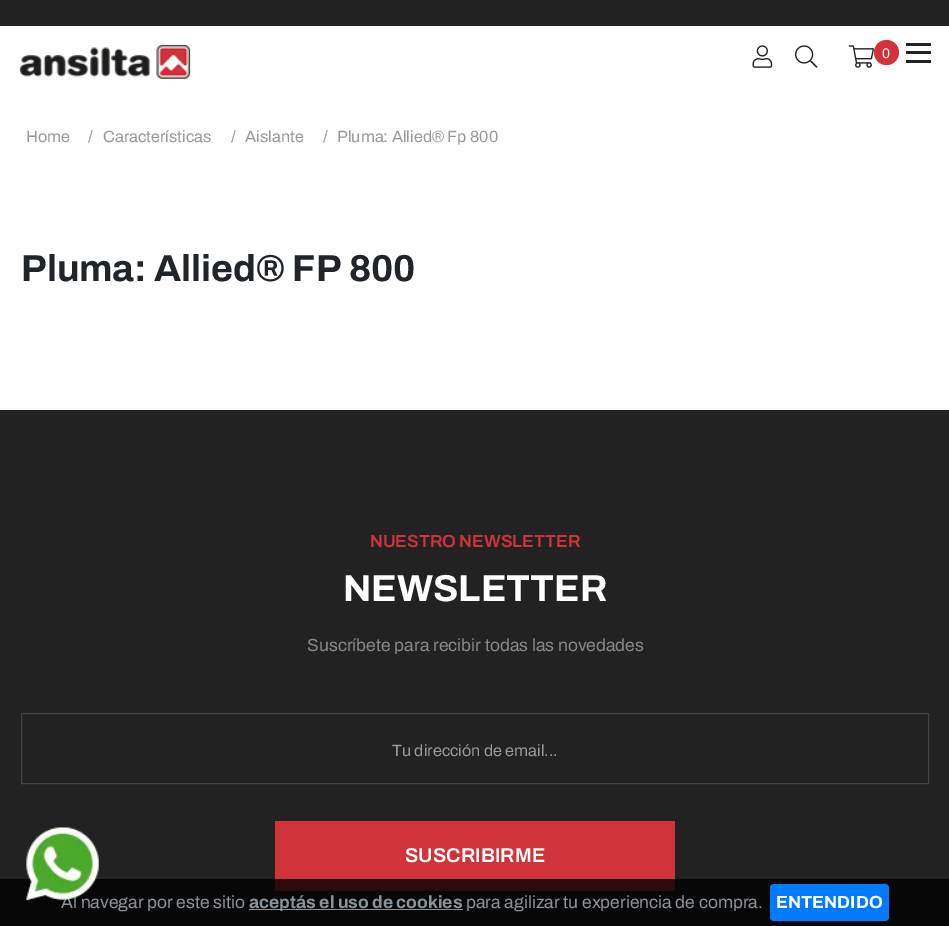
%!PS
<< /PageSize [949 926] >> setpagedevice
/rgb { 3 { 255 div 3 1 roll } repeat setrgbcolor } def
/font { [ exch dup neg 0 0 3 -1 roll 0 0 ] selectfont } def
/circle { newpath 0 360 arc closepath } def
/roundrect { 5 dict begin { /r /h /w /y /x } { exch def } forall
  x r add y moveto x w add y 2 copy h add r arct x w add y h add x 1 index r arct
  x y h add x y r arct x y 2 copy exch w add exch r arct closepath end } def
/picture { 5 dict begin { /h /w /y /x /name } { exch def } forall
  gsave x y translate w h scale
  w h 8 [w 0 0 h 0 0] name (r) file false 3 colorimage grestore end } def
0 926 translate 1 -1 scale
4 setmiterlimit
255 255 255 rgb
0 0 949 926 rectfill
34 34 34 rgb
0 0 949 26 rectfill
(img/1.rgb) 19 44 172 35 picture
(img/2.rgb) 752 45 21 23 picture
(img/3.rgb) 795 45 23 23 picture
(img/4.rgb) 848 45 26 23 picture
208 51 58 rgb
886.5 52.5 12.5 circle fill
[
  [906 43 25 3 34 34 34]
  [906 51 25 3 34 34 34]
  [906 60 25 3 34 34 34]
  [0 410 949 469 34 34 34]
  [0 879 949 47 7 7 7]
] { aload pop rgb rectfill } forall
68 68 68 rgb
21.5 713.5 907 70 rectstroke
[
  [275 821 400 58 208 51 58]
  [275 879 400 12 42 10 12]
  [249 909 214 1 137 147 153]
] { aload pop rgb rectfill } forall
0 123 255 rgb
770 884 119 37 4 roundrect fill
/Archivo-Regular 14 font
255 255 255 rgb
882 58 moveto (0) show
/Archivo-Regular 16.25 font
153 153 153 rgb
[
  [(Home) 26 142]
  [(/) 88 142]
  [(Características) 103 142]
  [(/) 231 142]
  [(Aislante) 245 142]
  [(/) 323 142]
  [(Pluma: Allied® Fp 800) 337 142]
] { aload pop moveto show } forall
/Archivo-Bold 37.5 font
33 37 41 rgb
21 281 moveto (Pluma: Allied® FP 800) show
/Archivo-SemiBold 17.5 font
208 51 58 rgb
370 547 moveto (NUESTRO NEWSLETTER) show
/Archivo-Bold 37.5 font
255 255 255 rgb
343 601 moveto (NEWSLETTER) show
/Archivo-Regular 17.5 font
136 136 136 rgb
307 651 moveto (Suscríbete para recibir todas las novedades) show
/Archivo-Regular 16.25 font
153 153 153 rgb
392 756 moveto (Tu dirección de email...) show
/Archivo-SemiBold 20 font
255 255 255 rgb
405 862 moveto (SUSCRIBIRME) show
/Archivo-Regular 17.5 font
137 147 153 rgb
61 908 moveto (Al navegar por este sitio) show
(img/5.rgb) 26 827 73 74 picture
/Archivo-Bold 17.5 font
249 908 moveto (aceptás el uso de cookies) show
/Archivo-Regular 17.5 font
466 908 moveto (para agilizar tu experiencia de compra.) show
/Archivo-Bold 17.5 font
255 255 255 rgb
776 908 moveto (ENTENDIDO) show
showpage
